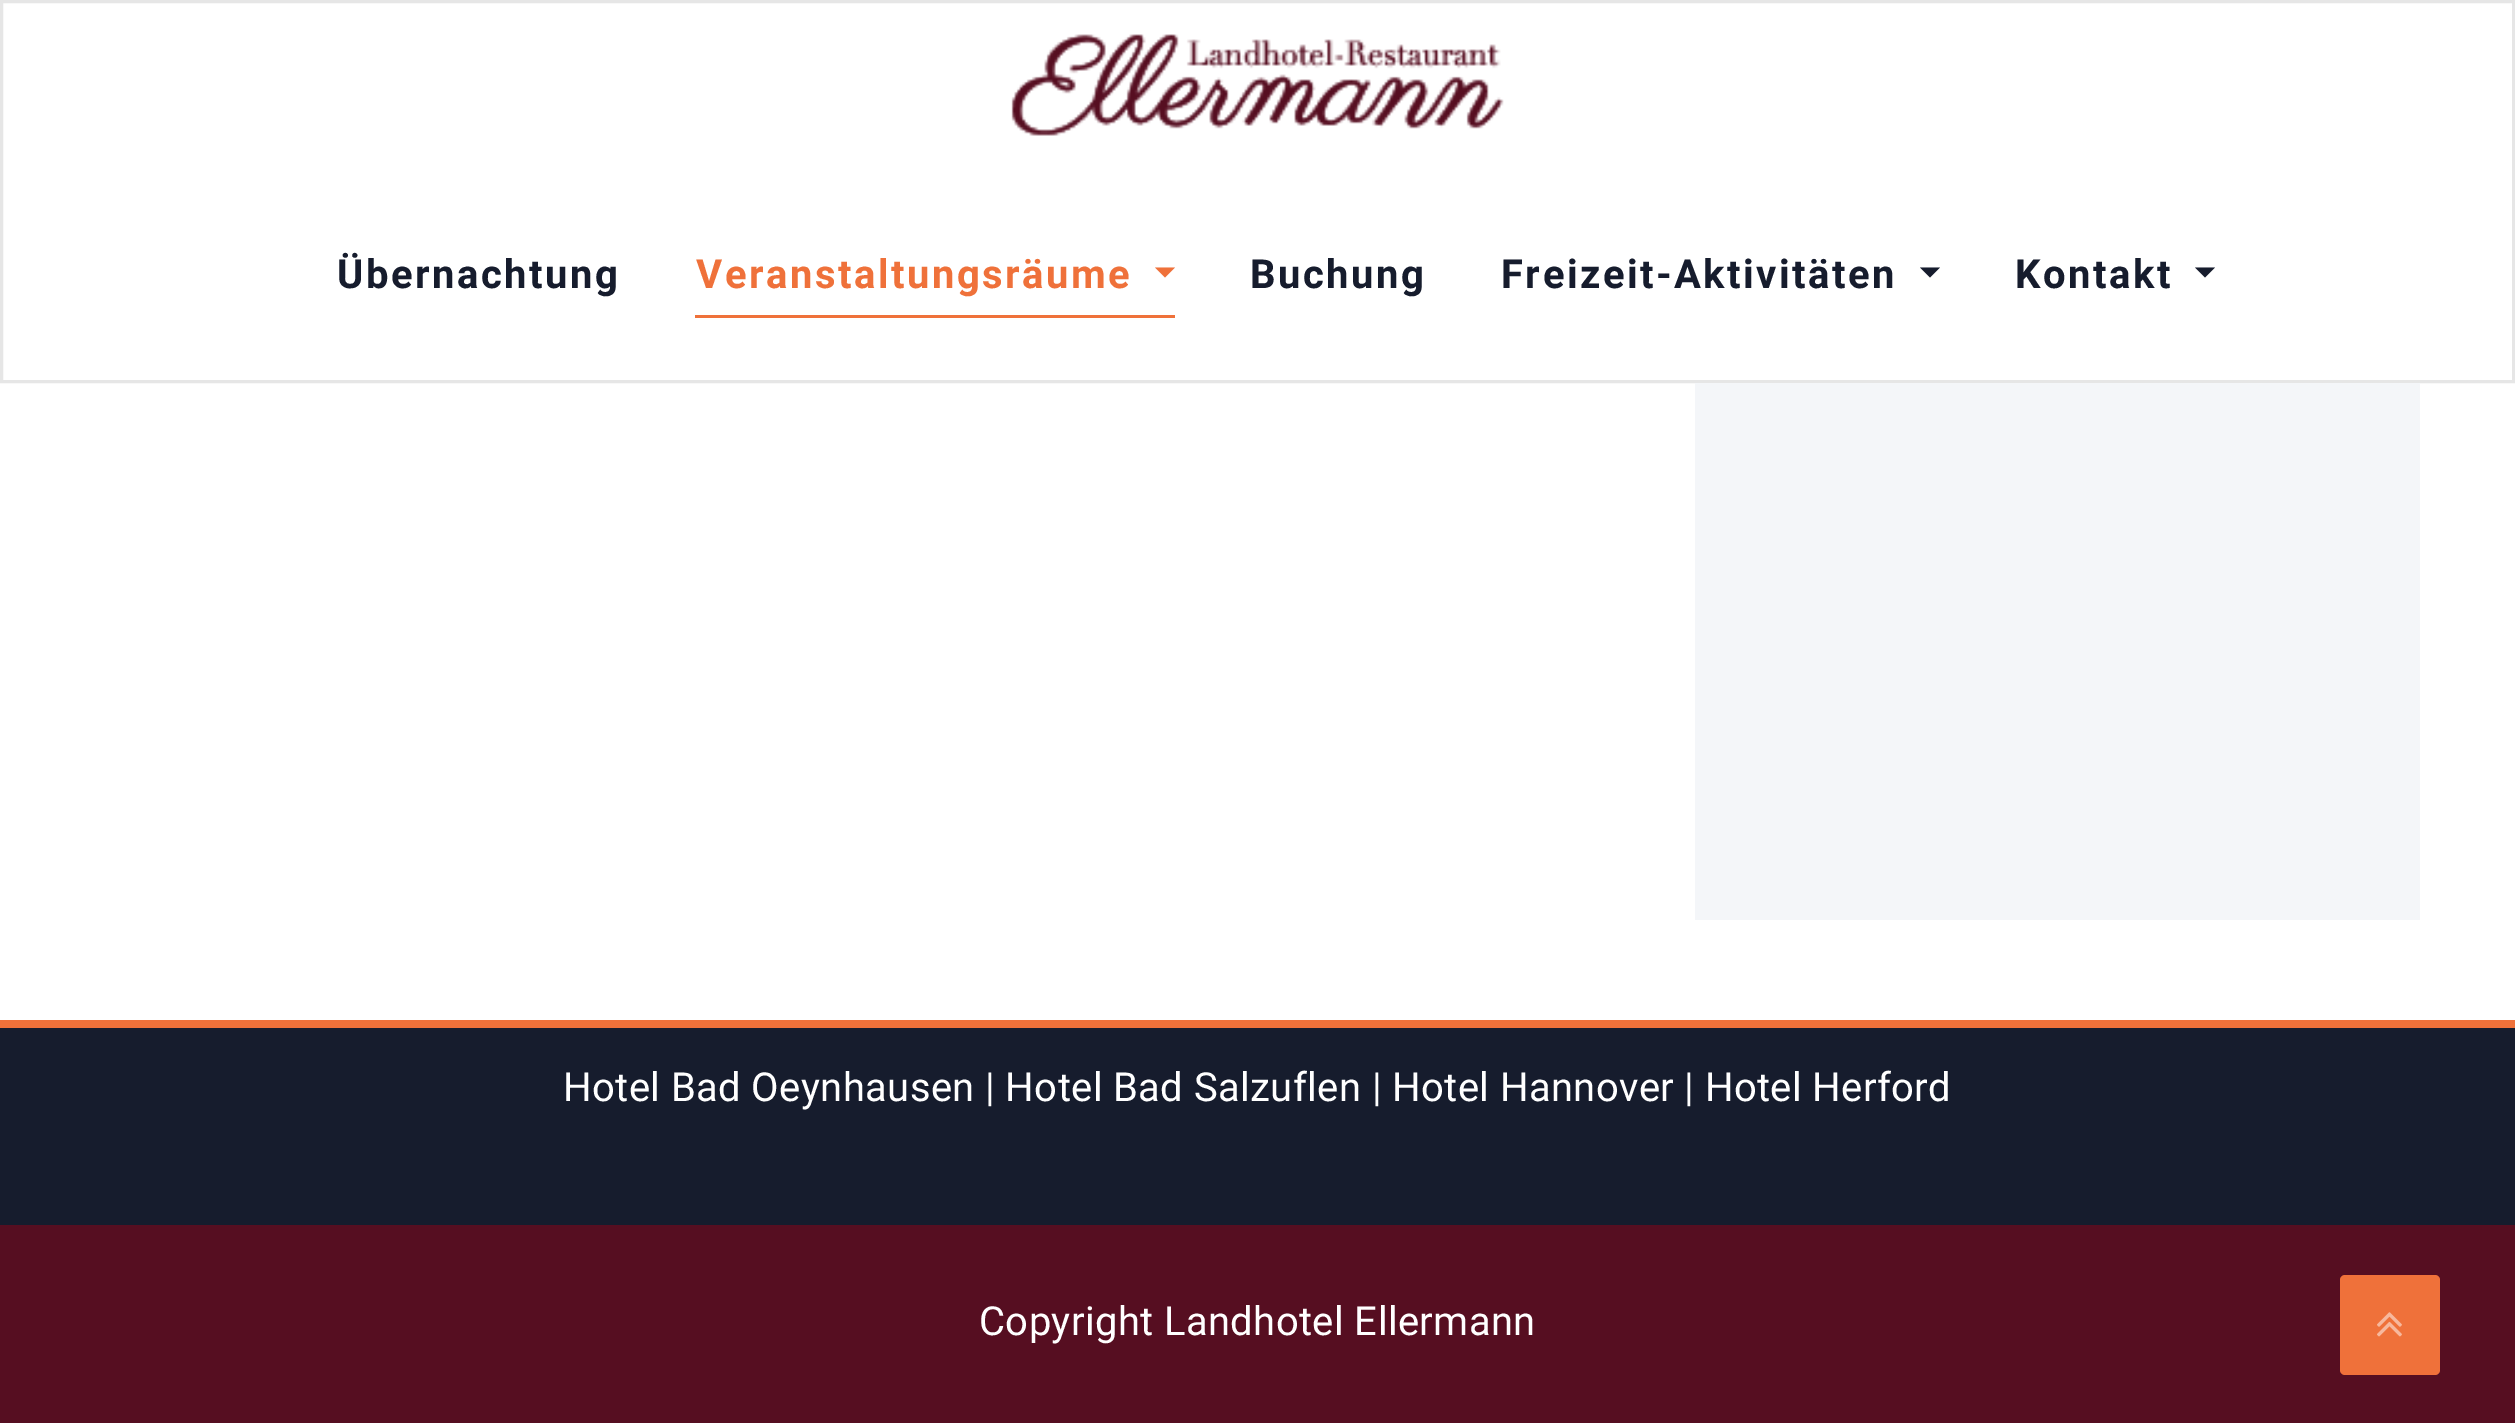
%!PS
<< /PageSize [2515 1423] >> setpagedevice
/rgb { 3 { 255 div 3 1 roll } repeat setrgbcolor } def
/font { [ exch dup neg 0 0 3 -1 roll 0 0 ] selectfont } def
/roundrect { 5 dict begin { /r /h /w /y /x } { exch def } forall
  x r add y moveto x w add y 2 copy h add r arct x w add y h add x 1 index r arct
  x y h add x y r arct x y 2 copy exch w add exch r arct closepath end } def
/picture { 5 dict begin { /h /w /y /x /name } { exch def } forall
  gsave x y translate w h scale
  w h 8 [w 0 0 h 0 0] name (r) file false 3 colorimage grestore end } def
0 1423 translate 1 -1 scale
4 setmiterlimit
255 255 255 rgb
0 0 2515 1423 rectfill
230 230 230 rgb
3 setlinewidth
1.5 1.5 2512 380 rectstroke
(img/1.rgb) 1011 34 493 102 picture
239 113 58 rgb
1155 267.5 moveto 1175 267.5 lineto 1165 277.5 lineto closepath fill
695 315 480 3 rectfill
22 28 45 rgb
1920 267.5 moveto 1940 267.5 lineto 1930 277.5 lineto closepath fill
2195 267.5 moveto 2215 267.5 lineto 2205 277.5 lineto closepath fill
[
  [1695 383 725 537 244 246 249]
  [0 1028 2515 197 22 28 45]
  [0 1020 2515 8 239 113 58]
  [0 1225 2515 198 86 14 33]
] { aload pop rgb rectfill } forall
239 113 58 rgb
2340 1275 100 100 5 roundrect fill
(img/2.rgb) 2377 1312 25 25 picture
/Roboto-Bold 40 font
22 28 45 rgb
337 288 moveto 2.5 0 (Übernachtung) ashow
239 113 58 rgb
696 288 moveto 2.5 0 (Veranstaltungsräume) ashow
22 28 45 rgb
1250 288 moveto 2.5 0 (Buchung) ashow
1501 288 moveto 2.5 0 (Freizeit-Aktivitäten) ashow
2015 288 moveto 2.5 0 (Kontakt) ashow
/Roboto-Regular 40 font
255 255 255 rgb
563 1101 moveto 0.4 0 (Hotel Bad Oeynhausen | Hotel Bad Salzuflen | Hotel Hannover | Hotel Herford) ashow
979 1335 moveto 0.4 0 (Copyright Landhotel Ellermann) ashow
showpage
